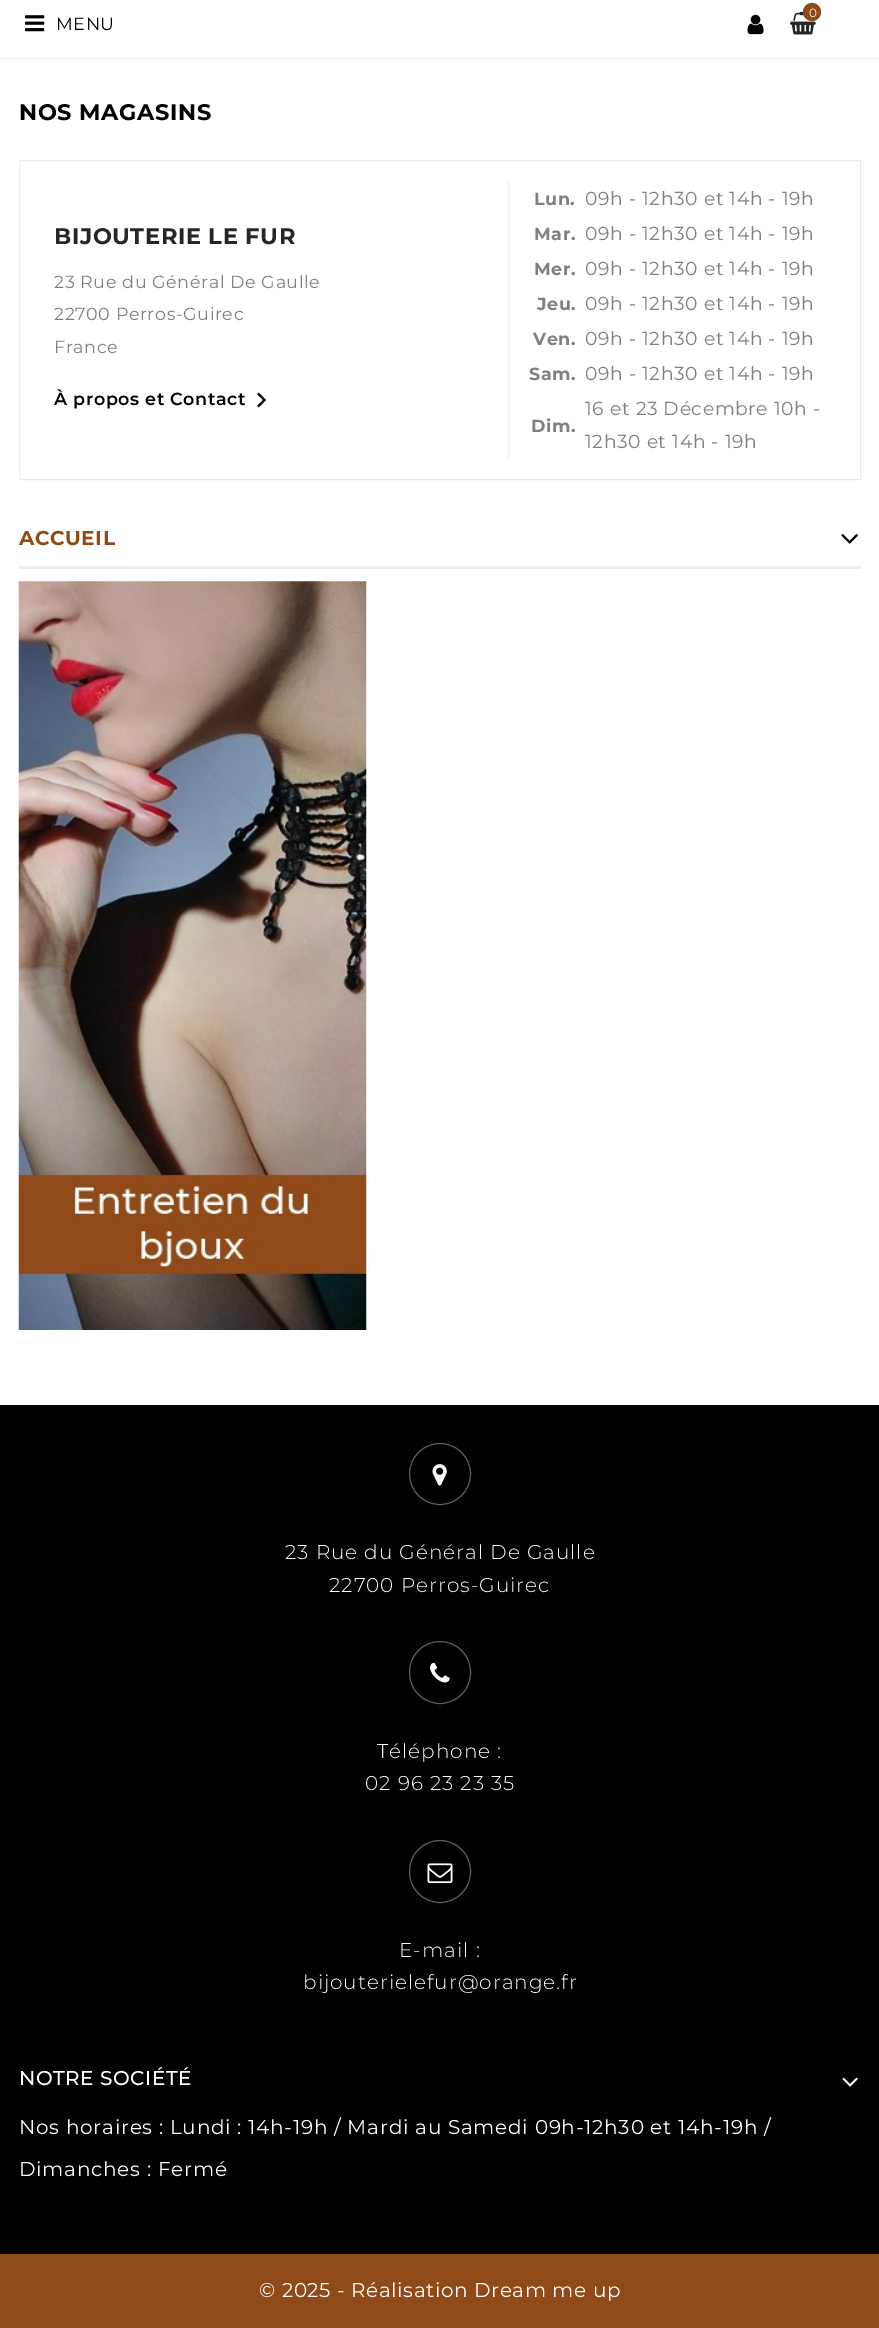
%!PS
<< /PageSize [879 2328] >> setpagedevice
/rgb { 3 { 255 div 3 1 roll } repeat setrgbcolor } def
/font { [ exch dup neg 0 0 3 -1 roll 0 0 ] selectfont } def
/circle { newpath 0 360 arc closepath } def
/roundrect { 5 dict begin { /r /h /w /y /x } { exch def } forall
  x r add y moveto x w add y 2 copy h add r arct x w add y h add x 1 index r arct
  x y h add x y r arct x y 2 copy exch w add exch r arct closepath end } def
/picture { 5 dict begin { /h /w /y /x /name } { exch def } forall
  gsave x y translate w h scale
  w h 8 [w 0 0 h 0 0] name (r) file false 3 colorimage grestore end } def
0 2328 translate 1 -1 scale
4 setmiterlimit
255 255 255 rgb
0 0 879 2328 rectfill
(img/1.rgb) 790 11 26 24 picture
144 74 25 rgb
812 12 9 circle fill
(img/2.rgb) 747 14 17 21 picture
237 237 237 rgb
0 58 879 1 rectfill
(img/3.rgb) 25 15 20 17 picture
235 235 235 rgb
19.5 160.5 841 319 rectstroke
(img/4.rgb) 257 392 10 16 picture
508 181 1 278 rectfill
237 237 237 rgb
19 566 842 3 rectfill
(img/5.rgb) 841 534 17 10 picture
(img/6.rgb) 18 581 349 749 picture
0 0 0 rgb
0 1405 879 849 rectfill
93 93 93 rgb
440 1474 30.5 circle stroke
(img/7.rgb) 432 1464 15 22 picture
409.5 1641.5 61 62 30.5 roundrect stroke
(img/8.rgb) 430 1662 20 21 picture
409.5 1840.5 61 62 30.5 roundrect stroke
(img/9.rgb) 427 1863 26 21 picture
(img/10.rgb) 842 2077 16 10 picture
144 74 25 rgb
0 2254 879 74 rectfill
/Montserrat-Regular 12 font
255 255 255 rgb
809 17 moveto 1 0 (0) ashow
/Montserrat-Regular 17.5 font
0 0 0 rgb
56 30 moveto 0.6 0 (MENU) ashow
/Montserrat-Bold 22.5 font
19 120 moveto 0.6 0 (NOS MAGASINS) ashow
38 38 38 rgb
54 244 moveto 0.6 0 (BIJOUTERIE LE FUR) ashow
/Montserrat-Regular 17.5 font
128 128 128 rgb
54 288 moveto 0.6 0 (23 Rue du Général De Gaulle) ashow
54 320 moveto 0.6 0 (22700 Perros-Guirec) ashow
54 353 moveto 0.6 0 (France) ashow
/Montserrat-SemiBold 17.5 font
0 0 0 rgb
54 405 moveto 0.6 0 (À propos et Contact) ashow
/Montserrat-Bold 17.5 font
128 128 128 rgb
534 205 moveto 0.6 0 (Lun.) ashow
/Montserrat-Regular 18.75 font
585 205 moveto 0.6 0 (09h - 12h30 et 14h - 19h) ashow
/Montserrat-Bold 17.5 font
534 240 moveto 0.6 0 (Mar.) ashow
/Montserrat-Regular 18.75 font
585 240 moveto 0.6 0 (09h - 12h30 et 14h - 19h) ashow
/Montserrat-Bold 17.5 font
534 275 moveto 0.6 0 (Mer.) ashow
/Montserrat-Regular 18.75 font
585 275 moveto 0.6 0 (09h - 12h30 et 14h - 19h) ashow
/Montserrat-Bold 17.5 font
537 310 moveto 0.6 0 (Jeu.) ashow
/Montserrat-Regular 18.75 font
585 310 moveto 0.6 0 (09h - 12h30 et 14h - 19h) ashow
/Montserrat-Bold 17.5 font
533 345 moveto 0.6 0 (Ven.) ashow
/Montserrat-Regular 18.75 font
585 345 moveto 0.6 0 (09h - 12h30 et 14h - 19h) ashow
/Montserrat-Bold 17.5 font
529 380 moveto 0.6 0 (Sam.) ashow
/Montserrat-Regular 18.75 font
585 380 moveto 0.6 0 (09h - 12h30 et 14h - 19h) ashow
/Montserrat-Bold 17.5 font
531 432 moveto 0.6 0 (Dim.) ashow
/Montserrat-Regular 18.75 font
585 415 moveto 0.6 0 (16 et 23 Décembre 10h -) ashow
585 448 moveto 0.6 0 (12h30 et 14h - 19h) ashow
/Montserrat-Bold 20 font
144 74 25 rgb
19 545 moveto 0.6 0 (ACCUEIL) ashow
/Montserrat-Light 20 font
255 255 255 rgb
285 1559 moveto 1 0 (23 Rue du Général De Gaulle) ashow
329 1592 moveto 1 0 (22700 Perros-Guirec) ashow
377 1758 moveto 1 0 (Téléphone :) ashow
365 1790 moveto 1 0 (02 96 23 23 35) ashow
399 1957 moveto 1 0 (E-mail :) ashow
303 1989 moveto 1 0 (bijouterielefur@orange.fr) ashow
/Montserrat-Medium 20 font
19 2085 moveto 0.5 0 (NOTRE SOCIÉTÉ) ashow
/Montserrat-Regular 20 font
19 2134 moveto 0.75 0 (Nos horaires : Lundi : 14h-19h / Mardi au Samedi 09h-12h30 et 14h-19h /) ashow
19 2176 moveto 0.75 0 (Dimanches : Fermé) ashow
259 2297 moveto 0.6 0 (© 2025 - Réalisation Dream me up) ashow
showpage
